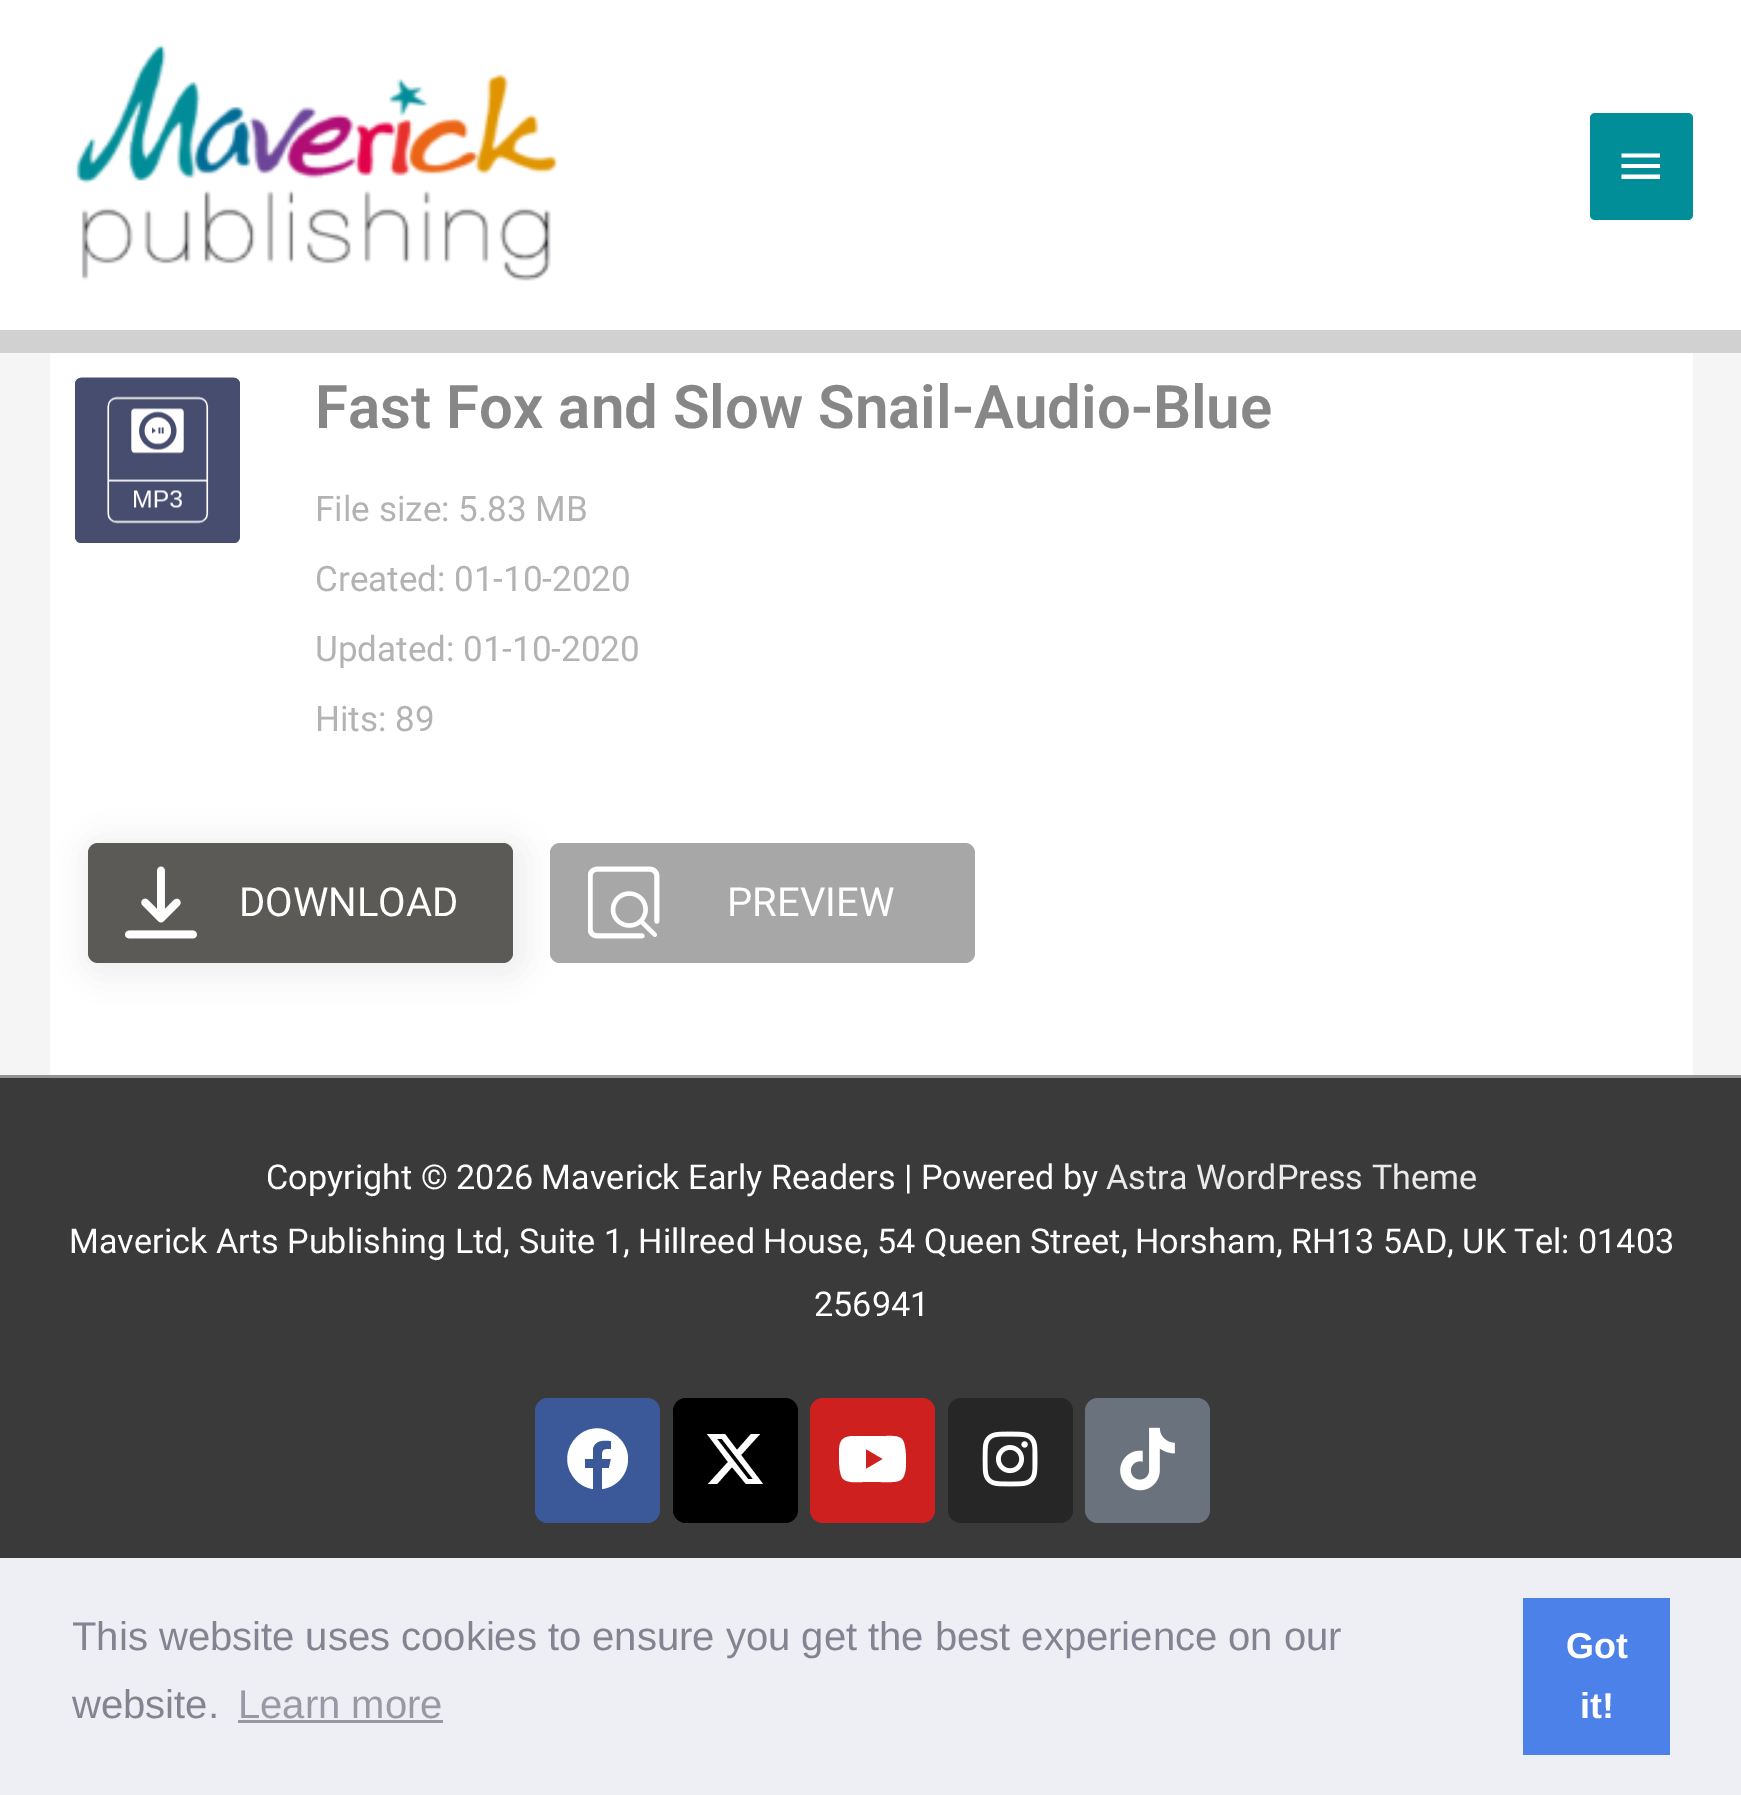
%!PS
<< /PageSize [1741 1795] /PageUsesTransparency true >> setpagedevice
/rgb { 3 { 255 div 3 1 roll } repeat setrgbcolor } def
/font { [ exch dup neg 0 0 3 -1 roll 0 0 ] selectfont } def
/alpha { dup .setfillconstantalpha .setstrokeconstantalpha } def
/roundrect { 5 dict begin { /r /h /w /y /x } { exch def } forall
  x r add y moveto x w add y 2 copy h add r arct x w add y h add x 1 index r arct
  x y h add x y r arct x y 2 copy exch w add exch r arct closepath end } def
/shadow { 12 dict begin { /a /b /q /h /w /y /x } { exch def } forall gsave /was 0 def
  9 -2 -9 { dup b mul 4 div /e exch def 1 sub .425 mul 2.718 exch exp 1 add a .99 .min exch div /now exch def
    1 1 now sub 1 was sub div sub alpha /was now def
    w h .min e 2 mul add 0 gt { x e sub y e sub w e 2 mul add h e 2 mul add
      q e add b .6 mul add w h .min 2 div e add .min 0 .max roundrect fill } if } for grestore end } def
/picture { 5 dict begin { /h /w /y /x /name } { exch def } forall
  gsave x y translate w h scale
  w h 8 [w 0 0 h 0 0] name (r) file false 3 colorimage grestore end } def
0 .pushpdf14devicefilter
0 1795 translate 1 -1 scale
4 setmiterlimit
245 245 245 rgb
0 0 1741 1795 rectfill
255 255 255 rgb
0 0 1741 330 rectfill
209 209 209 rgb
0 330 1741 23 rectfill
(img/1.rgb) 75 44 483 237 picture
1 142 153 rgb
1590 113 103 107 5 roundrect fill
255 255 255 rgb
1621.5 153.5 moveto 1660 153.5 lineto 1660 157.5 lineto 1621.5 157.5 lineto closepath 1621.5 168 moveto 1621.5 164 lineto 1660 164 lineto 1660 168 lineto closepath 1621.5 179 moveto 1621.5 174.5 lineto 1660 174.5 lineto 1660 179 lineto closepath fill
50 353 1643 722 rectfill
70 77 110 rgb
75 378 165 165 6 roundrect fill
(img/2.rgb) 75 377 165 164 picture
240 240 240 rgb
80 835 450 145 23 15 1 shadow
92 90 87 rgb
88 843 425 120 10 roundrect fill
(img/3.rgb) 125 866 72 73 picture
167 167 167 rgb
550 843 425 120 10 roundrect fill
(img/4.rgb) 588 866 72 73 picture
147 147 147 rgb
0 1075 1741 3 rectfill
58 58 58 rgb
0 1078 1741 480 rectfill
59 89 152 rgb
535 1398 125 125 13 roundrect fill
255 255 255 rgb
628 1459 moveto 628 1474 617 1487 602 1489 curveto 602 1468 lineto 609 1468 lineto 611 1459 lineto 602 1459 lineto 602 1450 602 1449 611 1449 curveto 611 1441 lineto 604 1440 595 1440 593 1448 curveto 593 1459 lineto 585 1459 lineto 585 1468 lineto 593 1468 lineto 593 1489 lineto 586 1488 579 1484 575 1479 curveto 552 1452 585 1414 614 1434 curveto 623 1440 628 1449 628 1459 curveto closepath fill
0 0 0 rgb
673 1398 125 125 13 roundrect fill
255 255 255 rgb
751 1434 moveto 760 1434 lineto 741 1455 lineto 763 1484 lineto 746 1484 lineto 732 1467 lineto 717 1484 lineto 708 1484 lineto 728 1462 lineto 707 1434 lineto 725 1434 lineto 737 1450 lineto closepath 748 1479 moveto 753 1479 lineto 722 1439 lineto 717 1439 lineto closepath fill
205 32 31 rgb
810 1398 125 125 13 roundrect fill
255 255 255 rgb
904 1443 moveto 906 1450 906 1457 906 1464 curveto 905 1484 899 1482 880 1482 curveto 863 1482 lineto 857 1482 843 1484 841 1475 curveto 839 1469 839 1461 839 1454 curveto 839 1443 840 1437 852 1436 curveto 867 1436 lineto 886 1436 lineto 893 1436 902 1435 904 1443 curveto closepath 866 1469 moveto 883 1459 lineto 866 1449 lineto closepath fill
38 38 38 rgb
948 1398 125 125 13 roundrect fill
(img/5.rgb) 982 1431 56 56 picture
105 114 125 rgb
1085 1398 125 125 13 roundrect fill
(img/6.rgb) 1120 1427 55 64 picture
[
  [0 1558 1741 237 237 239 245]
  [238 1720 205 3 152 153 165]
  [1523 1598 147 157 75 129 232]
] { aload pop rgb rectfill } forall
/Roboto-SemiBold 60 font
135 135 135 rgb
315 428 moveto (Fast Fox and Slow Snail-Audio-Blue) show
/Roboto-Regular 35 font
179 179 179 rgb
[
  [(File size: 5.83 MB) 315 521]
  [(Created: 01-10-2020) 315 591]
  [(Updated: 01-10-2020) 315 661]
  [(Hits: 89) 315 731]
] { aload pop moveto show } forall
/Roboto-Regular 40 font
255 255 255 rgb
239 916 moveto (DOWNLOAD) show
727 916 moveto (PREVIEW) show
/Roboto-Regular 34.2 font
266 1189 moveto (Copyright © 2026 Maverick Early Readers | Powered by) show
234 234 234 rgb
1106 1189 moveto (Astra WordPress Theme) show
255 255 255 rgb
[
  [(Maverick Arts Publishing Ltd, Suite 1, Hillreed House, 54 Queen Street,) 69 1253]
  [(Horsham, RH13 5AD, UK Tel: 01403) 1135 1253]
  [(256941) 814 1316]
] { aload pop moveto show } forall
/LiberationSans-Regular 40 font
131 131 145 rgb
72 1650 moveto (This website uses cookies to ensure you get the best experience on our) show
72 1718 moveto (website.) show
152 153 165 rgb
238 1718 moveto (Learn more) show
/LiberationSans-Bold 36 font
255 255 255 rgb
1566 1658 moveto (Got) show
1580 1718 moveto (it!) show
.poppdf14devicefilter showpage
